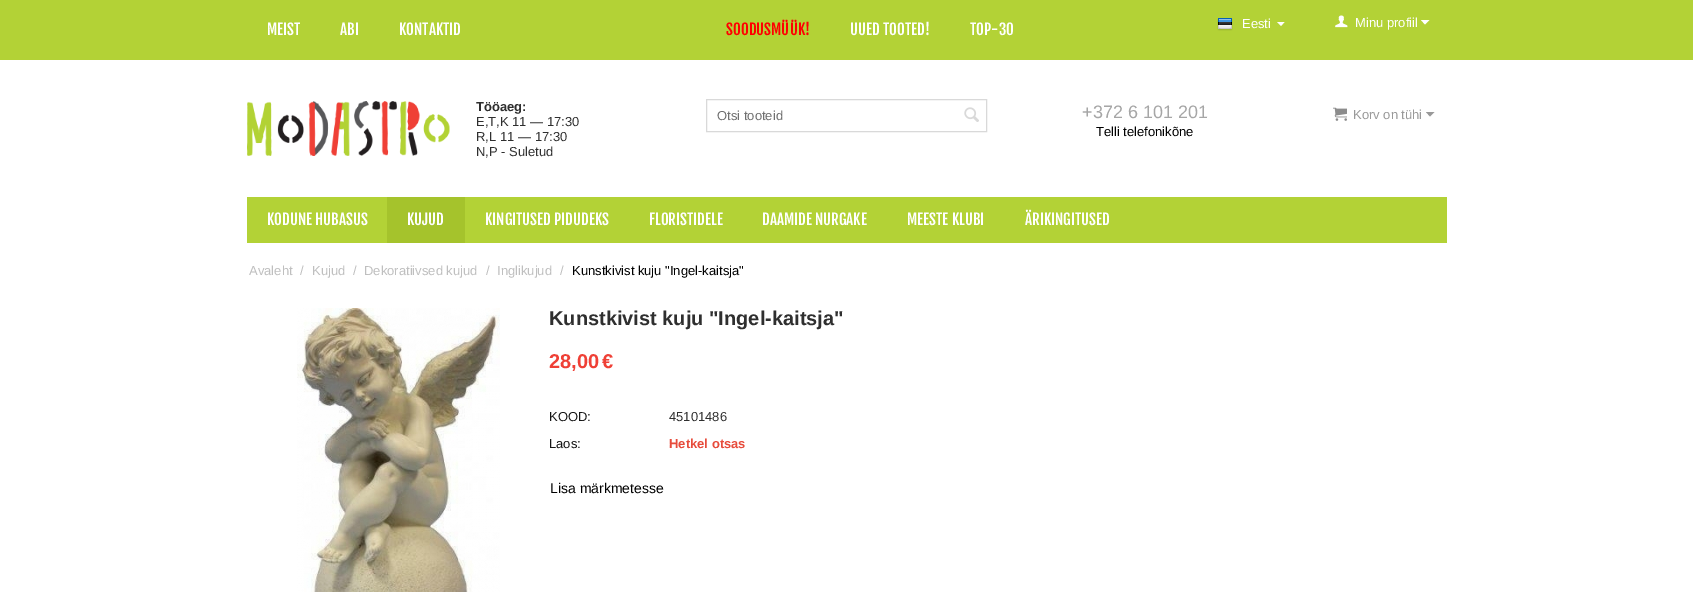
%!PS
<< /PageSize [1693 592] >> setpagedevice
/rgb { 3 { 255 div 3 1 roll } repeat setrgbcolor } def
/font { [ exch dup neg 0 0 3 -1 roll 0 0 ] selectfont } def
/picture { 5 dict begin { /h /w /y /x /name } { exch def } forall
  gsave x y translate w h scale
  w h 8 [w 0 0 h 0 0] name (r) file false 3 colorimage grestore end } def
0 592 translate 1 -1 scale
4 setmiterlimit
255 255 255 rgb
0 0 1693 592 rectfill
179 210 54 rgb
0 0 1693 60 rectfill
(img/1.rgb) 1217 18 16 13 picture
255 255 255 rgb
1281 26 moveto 1277 22 lineto 1284.5 22 lineto closepath fill
(img/2.rgb) 1335 15 13 13 picture
1425 24.5 moveto 1421 20 lineto 1429.5 20 lineto closepath fill
(img/3.rgb) 247 101 203 55 picture
217 217 217 rgb
706.5 99.5 280 32 rectstroke
(img/4.rgb) 964 107 15 15 picture
(img/5.rgb) 1333 107 14 14 picture
153 153 153 rgb
1430 116.5 moveto 1426 112 lineto 1434.5 112 lineto closepath fill
179 210 54 rgb
247 197 1200 46 rectfill
165 195 44 rgb
387 197 78 46 rectfill
(img/6.rgb) 297 308 203 284 picture
/FjallaOne-Regular 15 font
255 255 255 rgb
[
  [(MEIST) 267 35]
  [(ABI) 340 35]
  [(KONTAKTID) 399 35]
] { aload pop moveto show } forall
255 0 0 rgb
726 35 moveto (SOODUSMÜÜK!) show
255 255 255 rgb
850 35 moveto (UUED TOOTED!) show
970 35 moveto (TOP-30) show
/LiberationSans-Regular 13 font
1242 28 moveto (Eesti) show
1355 27 moveto (Minu profiil) show
/LiberationSans-Bold 13 font
47 47 47 rgb
476 111 moveto (Tööaeg:) show
/LiberationSans-Regular 13 font
[
  [(E,T,K 11 — 17:30) 476 126]
  [(R,L 11 — 17:30) 476 141]
  [(N,P - Suletud) 476 156]
] { aload pop moveto show } forall
111 111 111 rgb
717 120 moveto (Otsi tooteid) show
/LiberationSans-Regular 18 font
166 166 166 rgb
1082 118 moveto (+372 6 101 201) show
/LiberationSans-Regular 13 font
0 0 0 rgb
1096 136 moveto (Telli telefonikõne) show
153 153 153 rgb
1353 119 moveto (Korv on tühi) show
/FjallaOne-Regular 15 font
255 255 255 rgb
[
  [(KODUNE HUBASUS) 267 225]
  [(KUJUD) 407 225]
  [(KINGITUSED PIDUDEKS) 485 225]
  [(FLORISTIDELE) 649 225]
  [(DAAMIDE NURGAKE) 762 225]
  [(MEESTE KLUBI) 907 225]
  [(ÄRIKINGITUSED) 1025 225]
] { aload pop moveto show } forall
/LiberationSans-Regular 13 font
191 191 191 rgb
[
  [(Avaleht) 249 275]
  [(/) 300 275]
  [(Kujud) 312 275]
  [(/) 353 275]
  [(Dekoratiivsed kujud) 364 275]
  [(/) 486 275]
  [(Inglikujud) 497 275]
  [(/) 560 275]
] { aload pop moveto show } forall
0 0 0 rgb
572 275 moveto (Kunstkivist kuju "Ingel-kaitsja") show
/LiberationSans-Bold 20 font
47 47 47 rgb
549 325 moveto (Kunstkivist kuju "Ingel-kaitsja") show
239 64 54 rgb
549 368 moveto (28,00) show
602 368 moveto (€) show
/LiberationSans-Regular 13 font
22 22 22 rgb
549 421 moveto (KOOD:) show
47 47 47 rgb
669 421 moveto (45101486) show
22 22 22 rgb
549 448 moveto (Laos:) show
/LiberationSans-Bold 13 font
231 76 60 rgb
669 448 moveto (Hetkel otsas) show
/LiberationSans-Regular 14 font
0 0 0 rgb
550 493 moveto (Lisa märkmetesse) show
showpage
